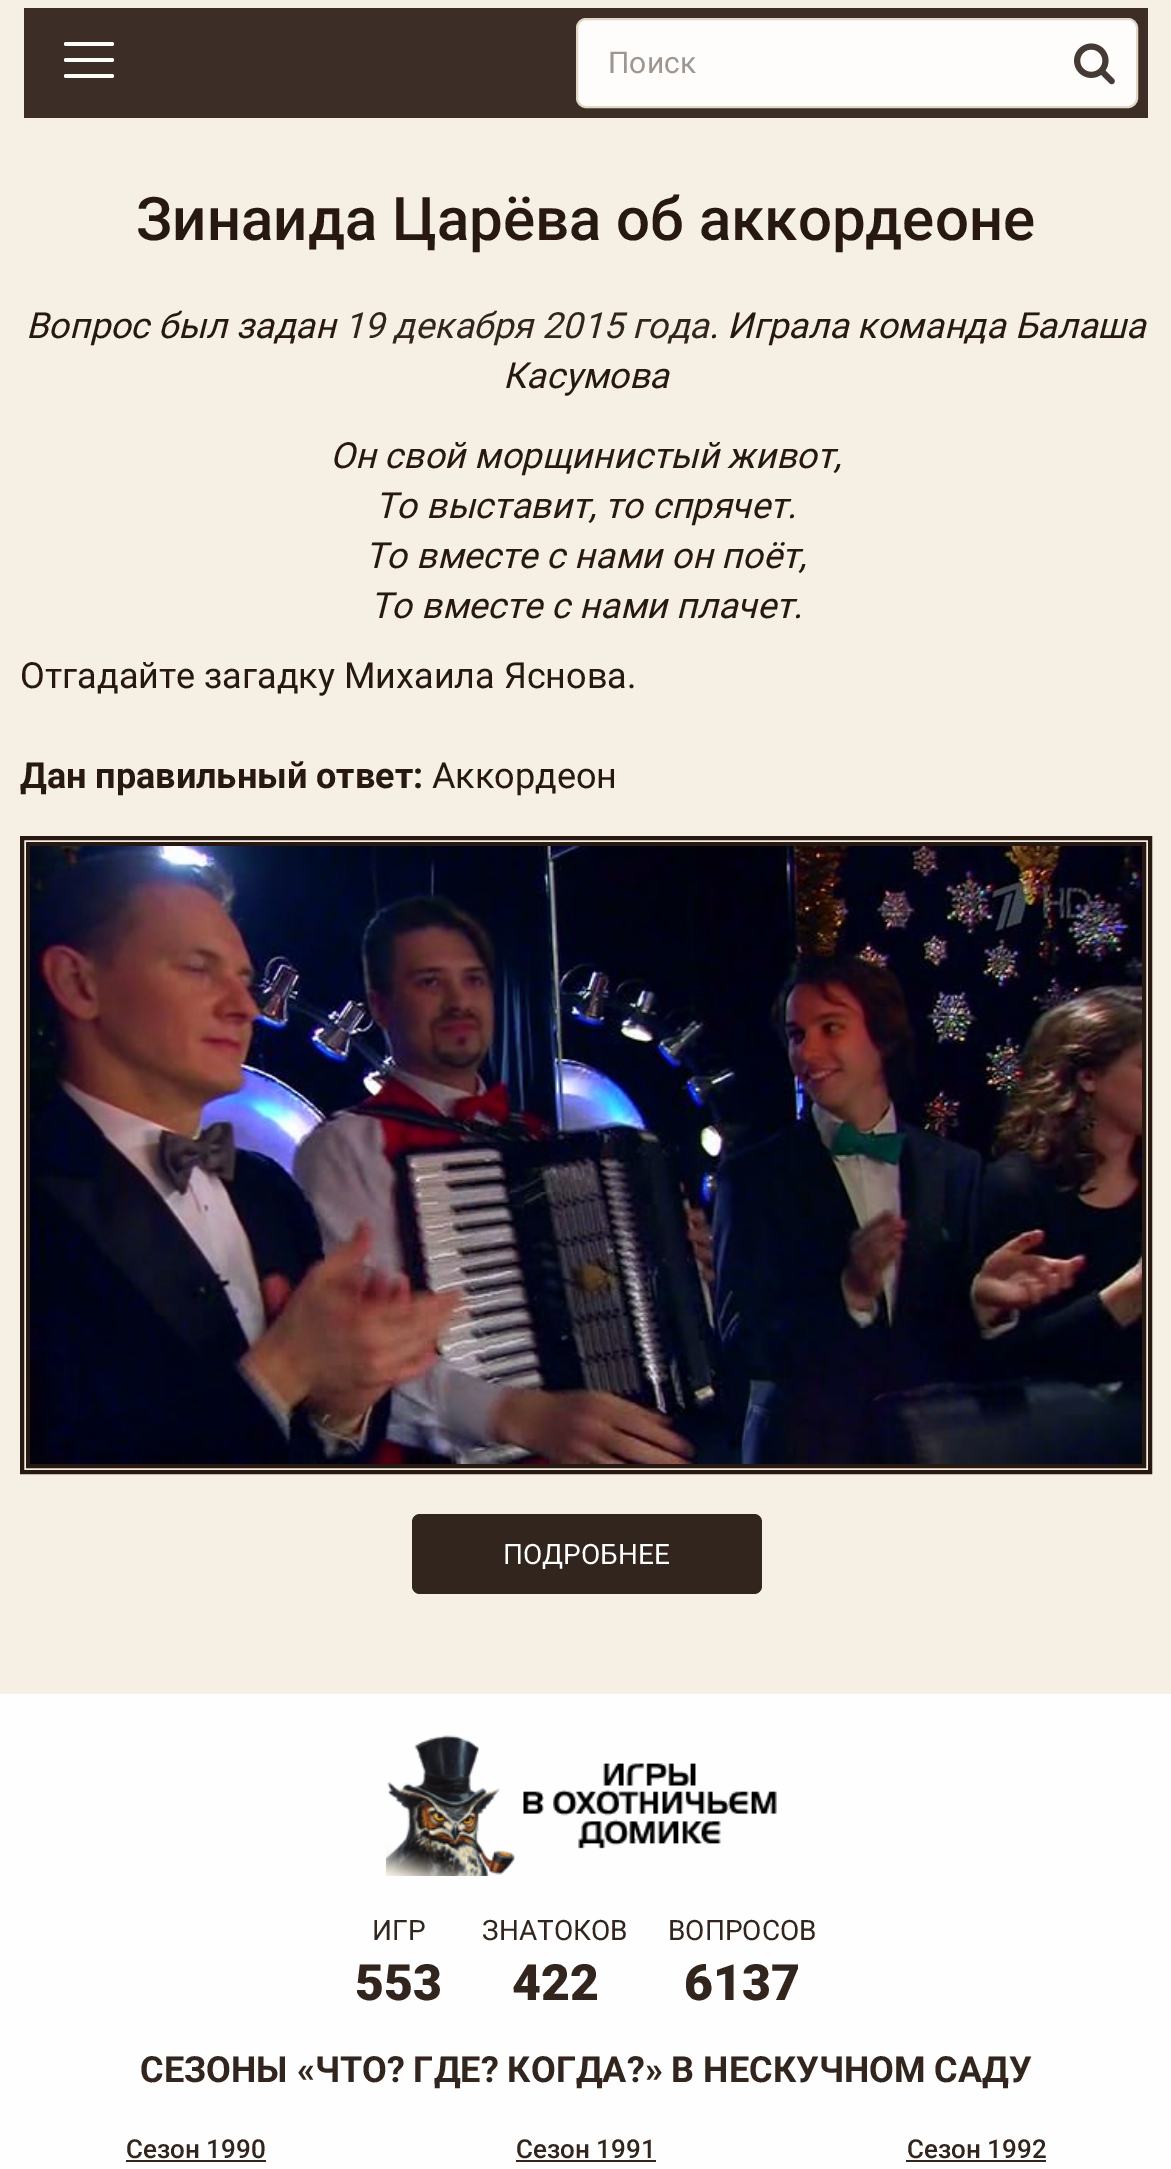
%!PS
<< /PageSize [1171 2169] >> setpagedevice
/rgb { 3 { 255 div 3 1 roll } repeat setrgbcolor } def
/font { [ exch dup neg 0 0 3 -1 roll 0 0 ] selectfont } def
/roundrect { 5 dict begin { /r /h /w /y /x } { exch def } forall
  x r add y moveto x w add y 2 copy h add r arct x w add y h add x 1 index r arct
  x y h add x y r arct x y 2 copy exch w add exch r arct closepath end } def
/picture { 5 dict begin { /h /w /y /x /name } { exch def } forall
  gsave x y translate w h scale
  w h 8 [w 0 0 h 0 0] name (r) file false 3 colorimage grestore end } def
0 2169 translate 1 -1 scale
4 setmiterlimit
245 239 228 rgb
0 0 1171 2169 rectfill
60 46 38 rgb
24 8 1124 110 rectfill
254 253 252 rgb
64 74 50 4 2 roundrect fill
64 42 50 4 2 roundrect fill
64 58 50 4 2 roundrect fill
577 19 560 88 9 roundrect gsave fill grestore
225 215 196 rgb
2 setlinewidth
stroke
(img/1.rgb) 1074 43 41 42 picture
39 25 17 rgb
4 setlinewidth
22 838 1128 634 rectstroke
28 844 1116 622 rectstroke
(img/2.rgb) 30 846 1112 618 picture
50 37 30 rgb
412 1514 350 80 8 roundrect fill
254 254 254 rgb
0 1694 1171 475 rectfill
(img/3.rgb) 386 1735 391 141 picture
[
  [126 2160 140 2 50 37 30]
  [516 2160 140 2 50 37 30]
  [906 2160 140 2 50 37 30]
] { aload pop rgb rectfill } forall
/Roboto-Regular 30 font
157 150 145 rgb
608 73 moveto (Поиск) show
/Roboto-Medium 60 font
39 25 17 rgb
136 240 moveto (Зинаида Царёва об аккордеоне) show
/Roboto-Italic 36 font
26 338 moveto (Вопрос был задан) show
50 37 30 rgb
344 338 moveto (19 декабря 2015 года) show
39 25 17 rgb
[
  [(. Играла команда Балаша) 709 338]
  [(Касумова) 503 388]
  [(Он свой морщинистый живот,) 330 468]
  [(То выставит, то спрячет.) 375 518]
  [(То вместе с нами он поёт,) 365 568]
  [(То вместе с нами плачет.) 370 618]
] { aload pop moveto show } forall
/Roboto-Regular 36 font
20 688 moveto (Отгадайте загадку Михаила Яснова.) show
/Roboto-Bold 36 font
20 788 moveto (Дан правильный ответ:) show
/Roboto-Regular 36 font
432 788 moveto (Аккордеон) show
/Roboto-Regular 28 font
255 255 255 rgb
503 1564 moveto (ПОДРОБНЕЕ) show
50 37 30 rgb
372 1940 moveto (ИГР) show
/Roboto-Black 50 font
355 2000 moveto (553) show
/Roboto-Regular 28 font
482 1940 moveto (ЗНАТОКОВ) show
/Roboto-Black 50 font
512 2000 moveto (422) show
/Roboto-Regular 28 font
668 1940 moveto (ВОПРОСОВ) show
/Roboto-Black 50 font
684 2000 moveto (6137) show
/Roboto-Bold 36 font
140 2082 moveto (СЕЗОНЫ «ЧТО? ГДЕ? КОГДА?» В НЕСКУЧНОМ САДУ) show
/Roboto-Medium 26 font
[
  [(Сезон 1990) 126 2158]
  [(Сезон 1991) 516 2158]
  [(Сезон 1992) 907 2158]
] { aload pop moveto show } forall
showpage
